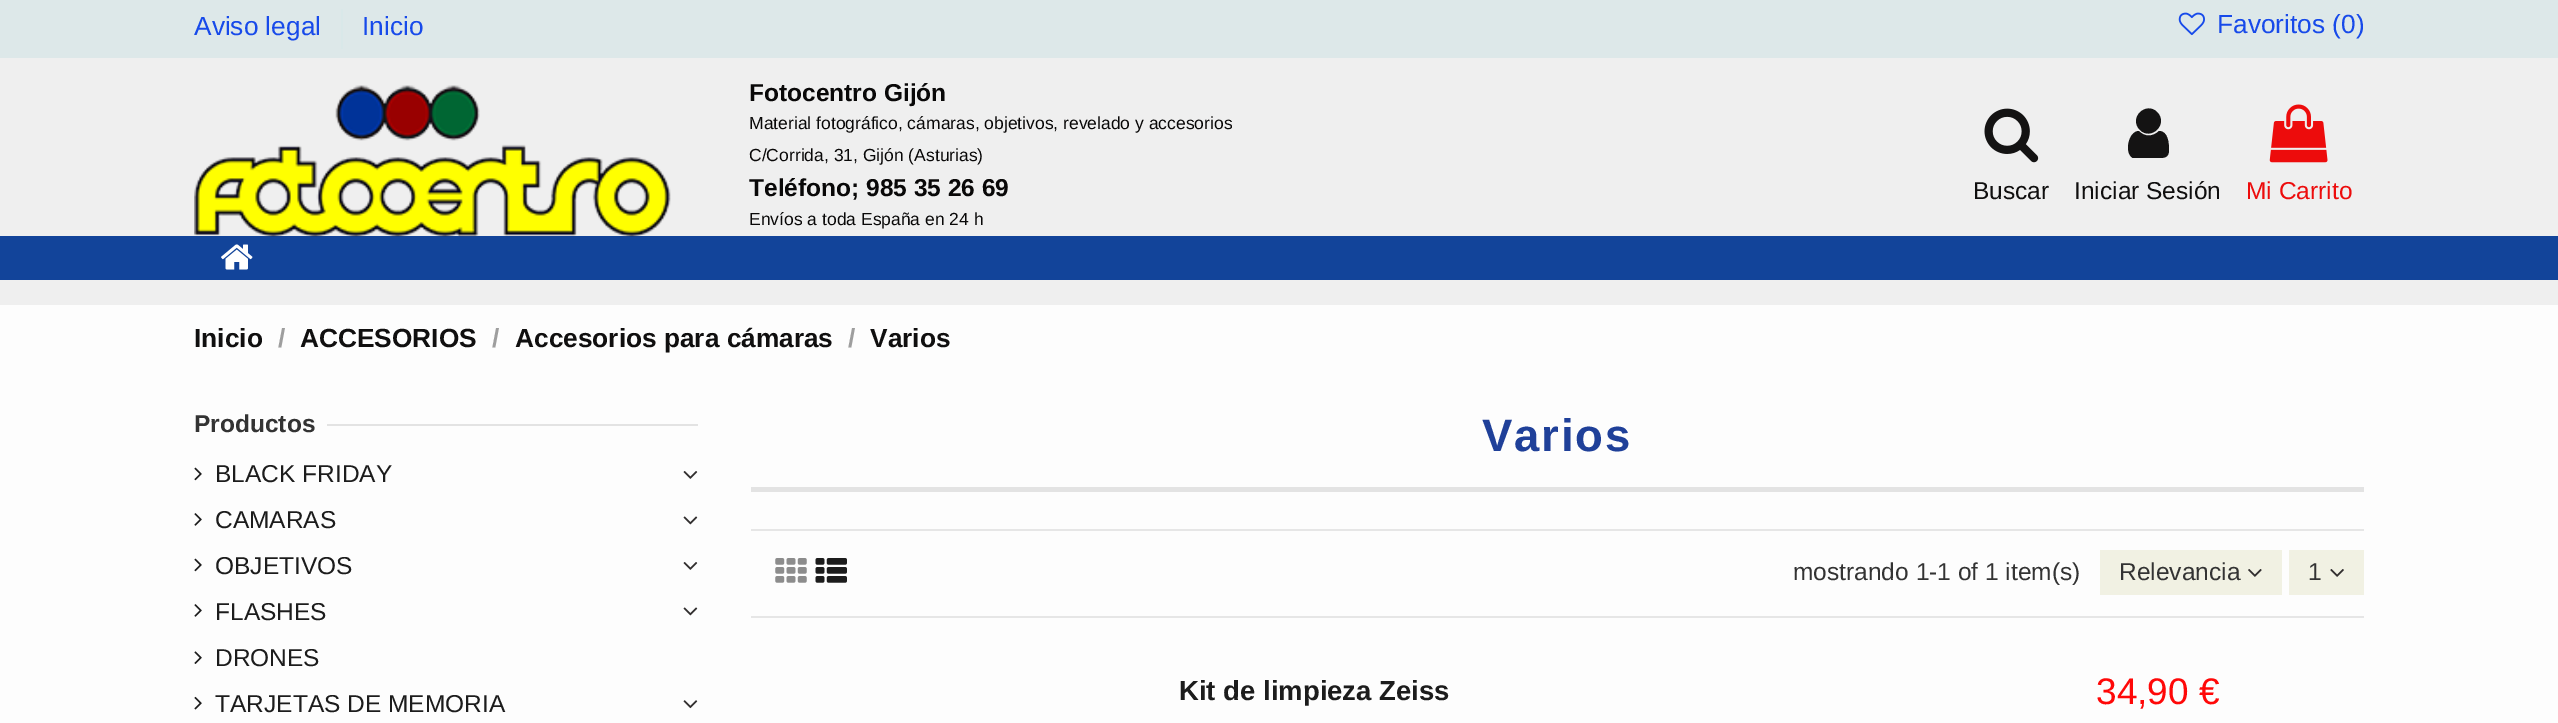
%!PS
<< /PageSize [2558 723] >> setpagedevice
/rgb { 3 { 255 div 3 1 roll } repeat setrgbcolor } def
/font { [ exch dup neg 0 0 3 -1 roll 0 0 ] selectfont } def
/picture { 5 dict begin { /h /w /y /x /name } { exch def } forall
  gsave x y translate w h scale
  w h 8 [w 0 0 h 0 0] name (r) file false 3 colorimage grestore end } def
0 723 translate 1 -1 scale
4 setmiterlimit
253 253 253 rgb
0 0 2558 723 rectfill
[
  [0 58 2558 247 239 239 239]
  [0 0 2558 58 221 232 233]
  [341 9 2 40 217 232 233]
] { aload pop rgb rectfill } forall
(img/1.rgb) 2178 12 27 24 picture
18 68 154 rgb
0 236 2558 44 rectfill
(img/2.rgb) 194 85 477 152 picture
(img/3.rgb) 1984 108 55 55 picture
20 19 19 rgb
2169 150 moveto 2169 158 2164 158 2158 158 curveto 2133 158 lineto 2124 154 2128 131 2139 131 curveto 2144 137 2153 137 2159 131 curveto 2168 131 2169 143 2169 150 curveto closepath 2157 112 moveto 2169 124 2151 141 2140 130 curveto 2128 118 2146 101 2157 112 curveto closepath fill
(img/4.rgb) 2269 104 59 59 picture
(img/5.rgb) 221 244 32 26 picture
227 227 227 rgb
327 424 371 2 rectfill
(img/6.rgb) 194 467 8 14 picture
(img/7.rgb) 683 471 15 8 picture
(img/8.rgb) 194 513 8 13 picture
(img/9.rgb) 683 516 15 9 picture
(img/6.rgb) 194 558 8 14 picture
(img/7.rgb) 683 562 15 8 picture
(img/8.rgb) 194 604 8 13 picture
(img/9.rgb) 683 607 15 9 picture
(img/10.rgb) 194 651 8 13 picture
(img/11.rgb) 194 696 8 14 picture
(img/12.rgb) 683 700 15 9 picture
[
  [751 487 1613 5 227 227 227]
  [751 529 1613 2 230 230 230]
  [751 616 1613 2 230 230 230]
] { aload pop rgb rectfill } forall
(img/13.rgb) 775 558 32 25 picture
(img/14.rgb) 815 558 32 25 picture
241 241 227 rgb
2100 550 182 45 rectfill
(img/15.rgb) 2248 569 14 8 picture
2289 550 75 45 rectfill
(img/16.rgb) 2330 569 14 8 picture
/LiberationSans-Regular 26.25 font
23 74 234 rgb
[
  [(Aviso legal) 194 35]
  [(Inicio) 362 35]
  [(Favoritos \(0\)) 2217 33]
] { aload pop moveto show } forall
/LiberationSans-Bold 24.5 font
9 8 8 rgb
749 101 moveto (Fotocentro Gijón) show
/LiberationSans-Regular 17.5 font
749 129 moveto (Material fotográfico, cámaras, objetivos, revelado y accesorios) show
749 161 moveto (C/Corrida, 31, Gijón \(Asturias\)) show
/LiberationSans-Bold 24.5 font
749 196 moveto (Teléfono; 985 35 26 69) show
/LiberationSans-Regular 17.5 font
749 225 moveto (Envíos a toda España en 24 h) show
/LiberationSans-Regular 24.5 font
16 15 15 rgb
1973 199 moveto (Buscar) show
2074 199 moveto (Iniciar Sesión) show
237 12 12 rgb
2246 199 moveto (Mi Carrito) show
/LiberationSans-Bold 26.25 font
16 15 15 rgb
194 347 moveto (Inicio) show
158 158 158 rgb
278 347 moveto (/) show
16 15 15 rgb
300 347 moveto (ACCESORIOS) show
158 158 158 rgb
492 347 moveto (/) show
16 15 15 rgb
515 347 moveto (Accesorios para cámaras) show
158 158 158 rgb
848 347 moveto (/) show
16 15 15 rgb
870 347 moveto (Varios) show
/LiberationSans-Bold 24.5 font
51 51 51 rgb
194 432 moveto (Productos) show
/LiberationSans-Regular 24.5 font
28 28 28 rgb
[
  [(BLACK FRIDAY) 215 482]
  [(CAMARAS) 215 528]
  [(OBJETIVOS) 215 574]
  [(FLASHES) 215 620]
  [(DRONES) 215 666]
  [(TARJETAS DE MEMORIA) 215 712]
] { aload pop moveto show } forall
/LiberationSans-Bold 45.5 font
31 64 153 rgb
1482 451 moveto 1.75 0 (Varios) ashow
/LiberationSans-Regular 24.5 font
51 51 51 rgb
[
  [(mostrando 1-1 of 1 item\(s\)) 1793 580]
  [(Relevancia) 2119 580]
  [(1) 2308 580]
] { aload pop moveto show } forall
/LiberationSans-Bold 27.5 font
28 28 28 rgb
1179 700 moveto (Kit de limpieza Zeiss) show
/LiberationSans-Regular 37 font
255 8 8 rgb
2096 704 moveto (34,90 €) show
showpage
